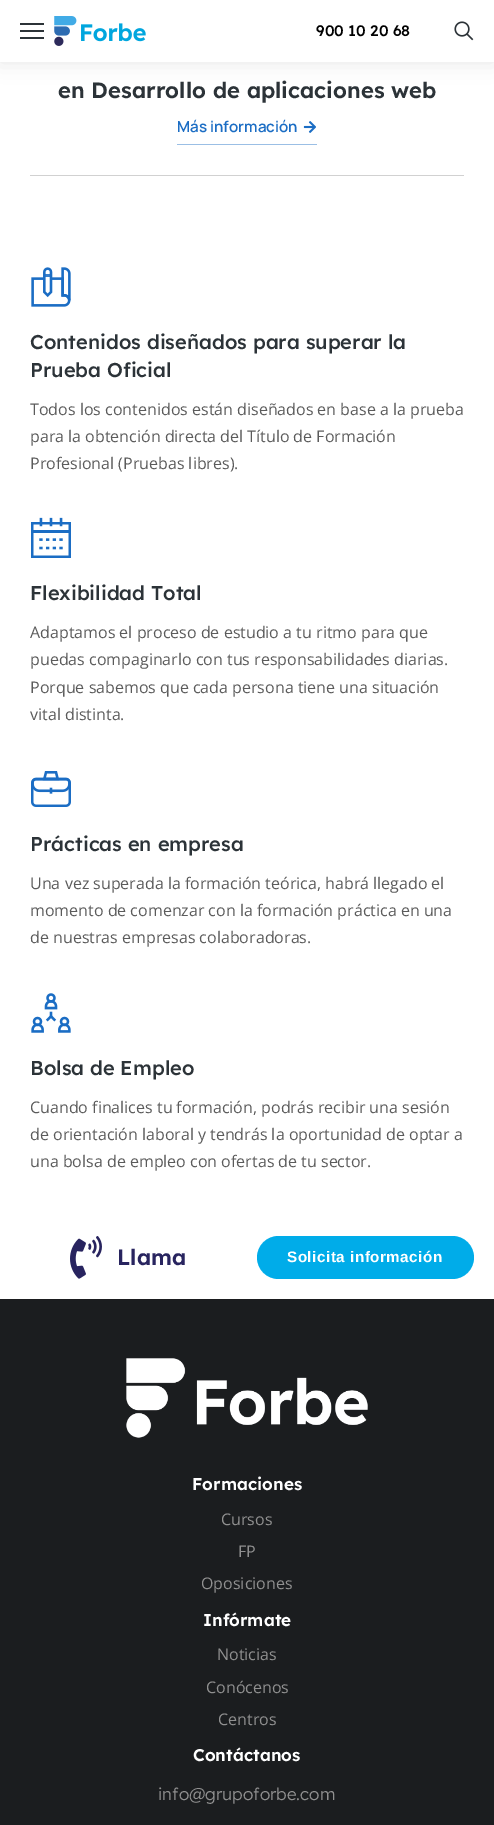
%!PS
<< /PageSize [494 1825] /PageUsesTransparency true >> setpagedevice
/rgb { 3 { 255 div 3 1 roll } repeat setrgbcolor } def
/font { [ exch dup neg 0 0 3 -1 roll 0 0 ] selectfont } def
/alpha { dup .setfillconstantalpha .setstrokeconstantalpha } def
/roundrect { 5 dict begin { /r /h /w /y /x } { exch def } forall
  x r add y moveto x w add y 2 copy h add r arct x w add y h add x 1 index r arct
  x y h add x y r arct x y 2 copy exch w add exch r arct closepath end } def
/shadow { 12 dict begin { /a /b /q /h /w /y /x } { exch def } forall gsave /was 0 def
  9 -2 -9 { dup b mul 4 div /e exch def 1 sub .425 mul 2.718 exch exp 1 add a .99 .min exch div /now exch def
    1 1 now sub 1 was sub div sub alpha /was now def
    w h .min e 2 mul add 0 gt { x e sub y e sub w e 2 mul add h e 2 mul add
      q e add b .6 mul add w h .min 2 div e add .min 0 .max roundrect fill } if } for grestore end } def
/picture { 5 dict begin { /h /w /y /x /name } { exch def } forall
  gsave x y translate w h scale
  w h 8 [w 0 0 h 0 0] name (r) file false 3 colorimage grestore end } def
0 .pushpdf14devicefilter
0 1825 translate 1 -1 scale
4 setmiterlimit
255 255 255 rgb
0 0 494 1825 rectfill
0 0 0 rgb
0 0 494 62 0 10 0.1 shadow
[
  [0 0 494 62 255 255 255]
  [20 23 24 2 44 51 56]
  [20 30 24 2 44 51 56]
  [20 37 24 2 44 51 56]
] { aload pop rgb rectfill } forall
(img/1.rgb) 54 16 92 30 picture
(img/2.rgb) 454 21 20 20 picture
209 209 209 rgb
30 175 434 1 rectfill
155 191 229 rgb
177 144 140 1 rectfill
(img/3.rgb) 303 121 13 12 picture
(img/4.rgb) 31 267 40 40 picture
(img/5.rgb) 31 517 40 41 picture
(img/6.rgb) 31 771 40 36 picture
(img/7.rgb) 31 993 40 40 picture
(img/8.rgb) 70 1236 32 43 picture
0 172 233 rgb
257 1236 217 43 21.5 roundrect fill
27 29 31 rgb
0 1299 494 526 rectfill
(img/9.rgb) 126 1358 242 80 picture
/LexendDeca-Medium 15.25 font
0 0 0 rgb
316 36 moveto (900 10 20 68) show
/LexendDeca-SemiBold 22 font
44 51 56 rgb
58 98 moveto (en Desarrollo de aplicaciones web) show
/Manrope-SemiBold 15.25 font
27 109 196 rgb
177 132 moveto (Más información) show
/LexendDeca-Medium 20 font
44 51 56 rgb
30 349 moveto (Contenidos diseñados para superar la) show
30 377 moveto (Prueba Oficial) show
/OpenSans-Regular 16 font
91 91 91 rgb
[
  [(Todos los contenidos están diseñados en base a la prueba) 30 415]
  [(para la obtención directa del Título de Formación) 30 442]
  [(Profesional \(Pruebas libres\).) 30 469]
] { aload pop moveto show } forall
/LexendDeca-Medium 20 font
44 51 56 rgb
30 600 moveto (Flexibilidad Total) show
/OpenSans-Regular 16 font
91 91 91 rgb
[
  [(Adaptamos el proceso de estudio a tu ritmo para que) 30 638]
  [(puedas compaginarlo con tus responsabilidades diarias.) 30 665]
  [(Porque sabemos que cada persona tiene una situación) 30 693]
  [(vital distinta.) 30 720]
] { aload pop moveto show } forall
/LexendDeca-Medium 20 font
44 51 56 rgb
30 851 moveto (Prácticas en empresa) show
/OpenSans-Regular 16 font
91 91 91 rgb
[
  [(Una vez superada la formación teórica, habrá llegado el) 30 889]
  [(momento de comenzar con la formación práctica en una) 30 916]
  [(de nuestras empresas colaboradoras.) 30 943]
] { aload pop moveto show } forall
/LexendDeca-Medium 20 font
44 51 56 rgb
30 1075 moveto (Bolsa de Empleo) show
/OpenSans-Regular 16 font
91 91 91 rgb
[
  [(Cuando finalices tu formación, podrás recibir una sesión) 30 1113]
  [(de orientación laboral y tendrás la oportunidad de optar a) 30 1140]
  [(una bolsa de empleo con ofertas de tu sector.) 30 1167]
] { aload pop moveto show } forall
/LexendDeca-SemiBold 22 font
40 36 95 rgb
117 1265 moveto (Llama) show
/LiberationSans-Bold 15.25 font
255 255 255 rgb
287 1262 moveto 0.5 0 (Solicita información) ashow
/LexendDeca-SemiBold 17 font
192 1490 moveto (Formaciones) show
/OpenSans-Regular 16 font
144 144 144 rgb
[
  [(Cursos) 221 1525]
  [(FP) 238 1557]
  [(Oposiciones) 201 1589]
] { aload pop moveto show } forall
/LexendDeca-SemiBold 17 font
255 255 255 rgb
203 1626 moveto (Infórmate) show
/OpenSans-Regular 16 font
144 144 144 rgb
[
  [(Noticias) 217 1660]
  [(Conócenos) 206 1693]
  [(Centros) 218 1725]
] { aload pop moveto show } forall
/LexendDeca-SemiBold 17 font
255 255 255 rgb
193 1761 moveto (Contáctanos) show
/LexendDeca-Light 17 font
144 144 144 rgb
158 1800 moveto (info@grupoforbe.com) show
.poppdf14devicefilter showpage
